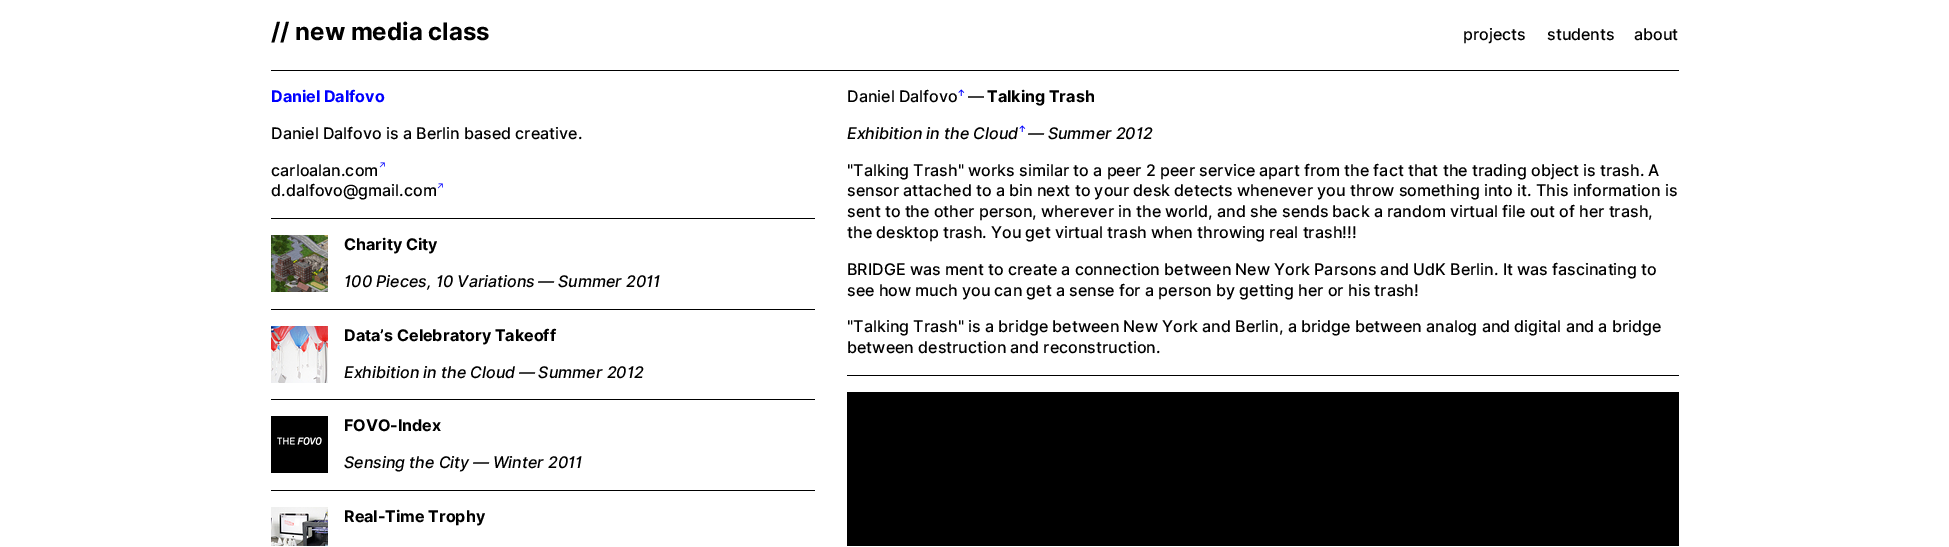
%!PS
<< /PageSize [1949 547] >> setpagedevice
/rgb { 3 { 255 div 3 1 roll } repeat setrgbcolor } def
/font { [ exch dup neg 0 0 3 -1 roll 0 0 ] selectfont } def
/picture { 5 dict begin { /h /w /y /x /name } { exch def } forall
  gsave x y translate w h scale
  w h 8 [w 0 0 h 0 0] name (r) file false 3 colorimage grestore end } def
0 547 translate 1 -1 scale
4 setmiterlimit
255 255 255 rgb
0 0 1949 547 rectfill
[
  [271 70 1408 1 0 0 0]
  [271 218 544 1 0 0 0]
  [271 309 544 1 0 0 0]
] { aload pop rgb rectfill } forall
(img/1.rgb) 271 235 57 57 picture
271 399 544 1 rectfill
(img/2.rgb) 271 326 57 57 picture
271 490 544 1 rectfill
(img/3.rgb) 271 416 57 57 picture
(img/4.rgb) 271 507 57 39 picture
847 375 832 1 rectfill
847 392 832 154 rectfill
/Inter-Bold 24 font
271 40 moveto (// new media class) show
/Inter-Medium 16 font
[
  [(projects) 1463 40]
  [(students) 1547 40]
  [(about) 1634 40]
] { aload pop moveto show } forall
/Inter-Bold 16 font
0 0 255 rgb
271 102 moveto (Daniel Dalfovo) show
/Inter-Medium 16 font
0 0 0 rgb
271 139 moveto (Daniel Dalfovo is a Berlin based creative.) show
271 176 moveto (carloalan.com) show
/Inter-Medium 9 font
0 0 255 rgb
378 169 moveto (↗) show
/Inter-Medium 16 font
0 0 0 rgb
271 196 moveto (d.dalfovo@gmail.com) show
/Inter-Medium 9 font
0 0 255 rgb
436 190 moveto (↗) show
/Inter-Bold 16 font
0 0 0 rgb
344 250 moveto (Charity City) show
/Inter-MediumItalic 16 font
344 287 moveto (100 Pieces, 10 Variations — Summer 2011) show
/Inter-Bold 16 font
344 341 moveto (Data’s Celebratory Takeoff) show
/Inter-MediumItalic 16 font
344 378 moveto (Exhibition in the Cloud — Summer 2012) show
/Inter-Bold 16 font
344 431 moveto (FOVO-Index) show
/Inter-MediumItalic 16 font
344 468 moveto (Sensing the City — Winter 2011) show
/Inter-Bold 16 font
344 522 moveto (Real-Time Trophy) show
/Inter-Medium 16 font
847 102 moveto (Daniel Dalfovo) show
/Inter-Medium 9 font
0 0 255 rgb
957 96 moveto (↑) show
/Inter-Medium 16 font
0 0 0 rgb
968 102 moveto (—) show
/Inter-Bold 16 font
987 102 moveto (Talking Trash) show
/Inter-MediumItalic 16 font
847 139 moveto (Exhibition in the Cloud) show
/Inter-Medium 9 font
0 0 255 rgb
1018 132 moveto (↑) show
/Inter-MediumItalic 16 font
0 0 0 rgb
1028 139 moveto (— Summer 2012) show
/Inter-Medium 16 font
[
  [("Talking Trash" works similar to a peer 2 peer service apart from the fact that the trading object is trash. A) 847 176]
  [(sensor attached to a bin next to your desk detects whenever you throw something into it. This information is) 847 196]
  [(sent to the other person, wherever in the world, and she sends back a random virtual file out of her trash,) 847 217]
  [(the desktop trash. You get virtual trash when throwing real trash!!!) 847 238]
  [(BRIDGE was ment to create a connection between New York Parsons and UdK Berlin. It was fascinating to) 847 275]
  [(see how much you can get a sense for a person by getting her or his trash!) 847 296]
  [("Talking Trash" is a bridge between New York and Berlin, a bridge between analog and digital and a bridge) 847 332]
  [(between destruction and reconstruction.) 847 353]
] { aload pop moveto show } forall
showpage
